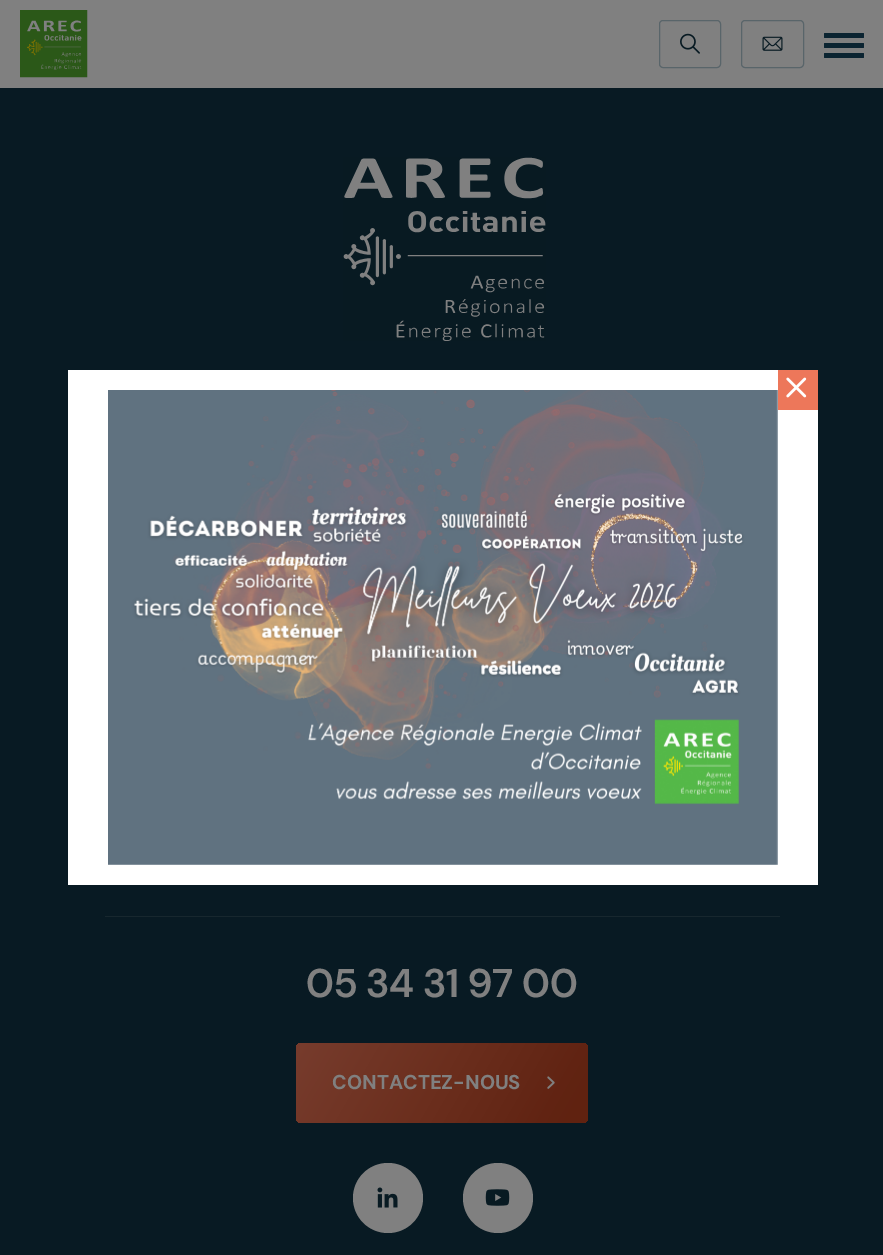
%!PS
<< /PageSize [883 1255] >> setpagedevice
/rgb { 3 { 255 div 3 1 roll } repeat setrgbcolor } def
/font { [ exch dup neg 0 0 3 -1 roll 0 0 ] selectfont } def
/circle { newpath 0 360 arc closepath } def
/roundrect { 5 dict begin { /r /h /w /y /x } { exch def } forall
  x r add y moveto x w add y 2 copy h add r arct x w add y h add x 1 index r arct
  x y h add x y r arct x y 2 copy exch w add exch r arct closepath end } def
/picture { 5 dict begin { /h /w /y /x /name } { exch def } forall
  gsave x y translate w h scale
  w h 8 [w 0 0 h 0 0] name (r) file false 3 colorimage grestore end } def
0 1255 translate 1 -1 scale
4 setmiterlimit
8 26 35 rgb
0 0 883 1255 rectfill
255 255 255 rgb
68 370 750 515 rectfill
(img/1.rgb) 108 390 670 475 picture
237 119 90 rgb
778 370 40 40 rectfill
(img/2.rgb) 786 377 21 21 picture
128 128 128 rgb
0 0 883 88 rectfill
(img/3.rgb) 20 10 68 68 picture
89 101 106 rgb
659.5 20.5 61 47 3.5 roundrect stroke
(img/4.rgb) 680 33 20 21 picture
741.5 20.5 62 47 3.5 roundrect stroke
(img/5.rgb) 762 36 21 15 picture
11 36 49 rgb
824 33 40 5 1 roundrect fill
824 43 40 5 1 roundrect fill
824 53 40 5 1 roundrect fill
(img/6.rgb) 343 157 203 184 picture
23 39 46 rgb
105 916 675 1 rectfill
gsave 296 1043 292 80 6 roundrect clip newpath
<< /ShadingType 2 /ColorSpace /DeviceRGB /Coords [352 946 823 1219] /Extend [true true] /Function << /FunctionType 3 /Domain [0 1] /Functions [<< /FunctionType 2 /Domain [0 1] /C0 [0.467 0.235 0.176] /C1 [0.376 0.133 0.063] /N 1 >> << /FunctionType 2 /Domain [0 1] /C0 [0.376 0.133 0.063] /C1 [0.376 0.133 0.063] /N 1 >>] /Bounds [0.5] /Encode [0 1 0 1] >> >> shfill grestore
(img/7.rgb) 547 1076 8 13 picture
128 128 128 rgb
388 1198 35 circle fill
(img/8.rgb) 377 1187 21 21 picture
498 1198 35 circle fill
(img/9.rgb) 485 1189 25 17 picture
/DMSans-SemiBold 40 font
306 997 moveto (05 34 31 97 00) show
/DMSans-Bold 20 font
332 1089 moveto (CONTACTEZ-NOUS) show
showpage
